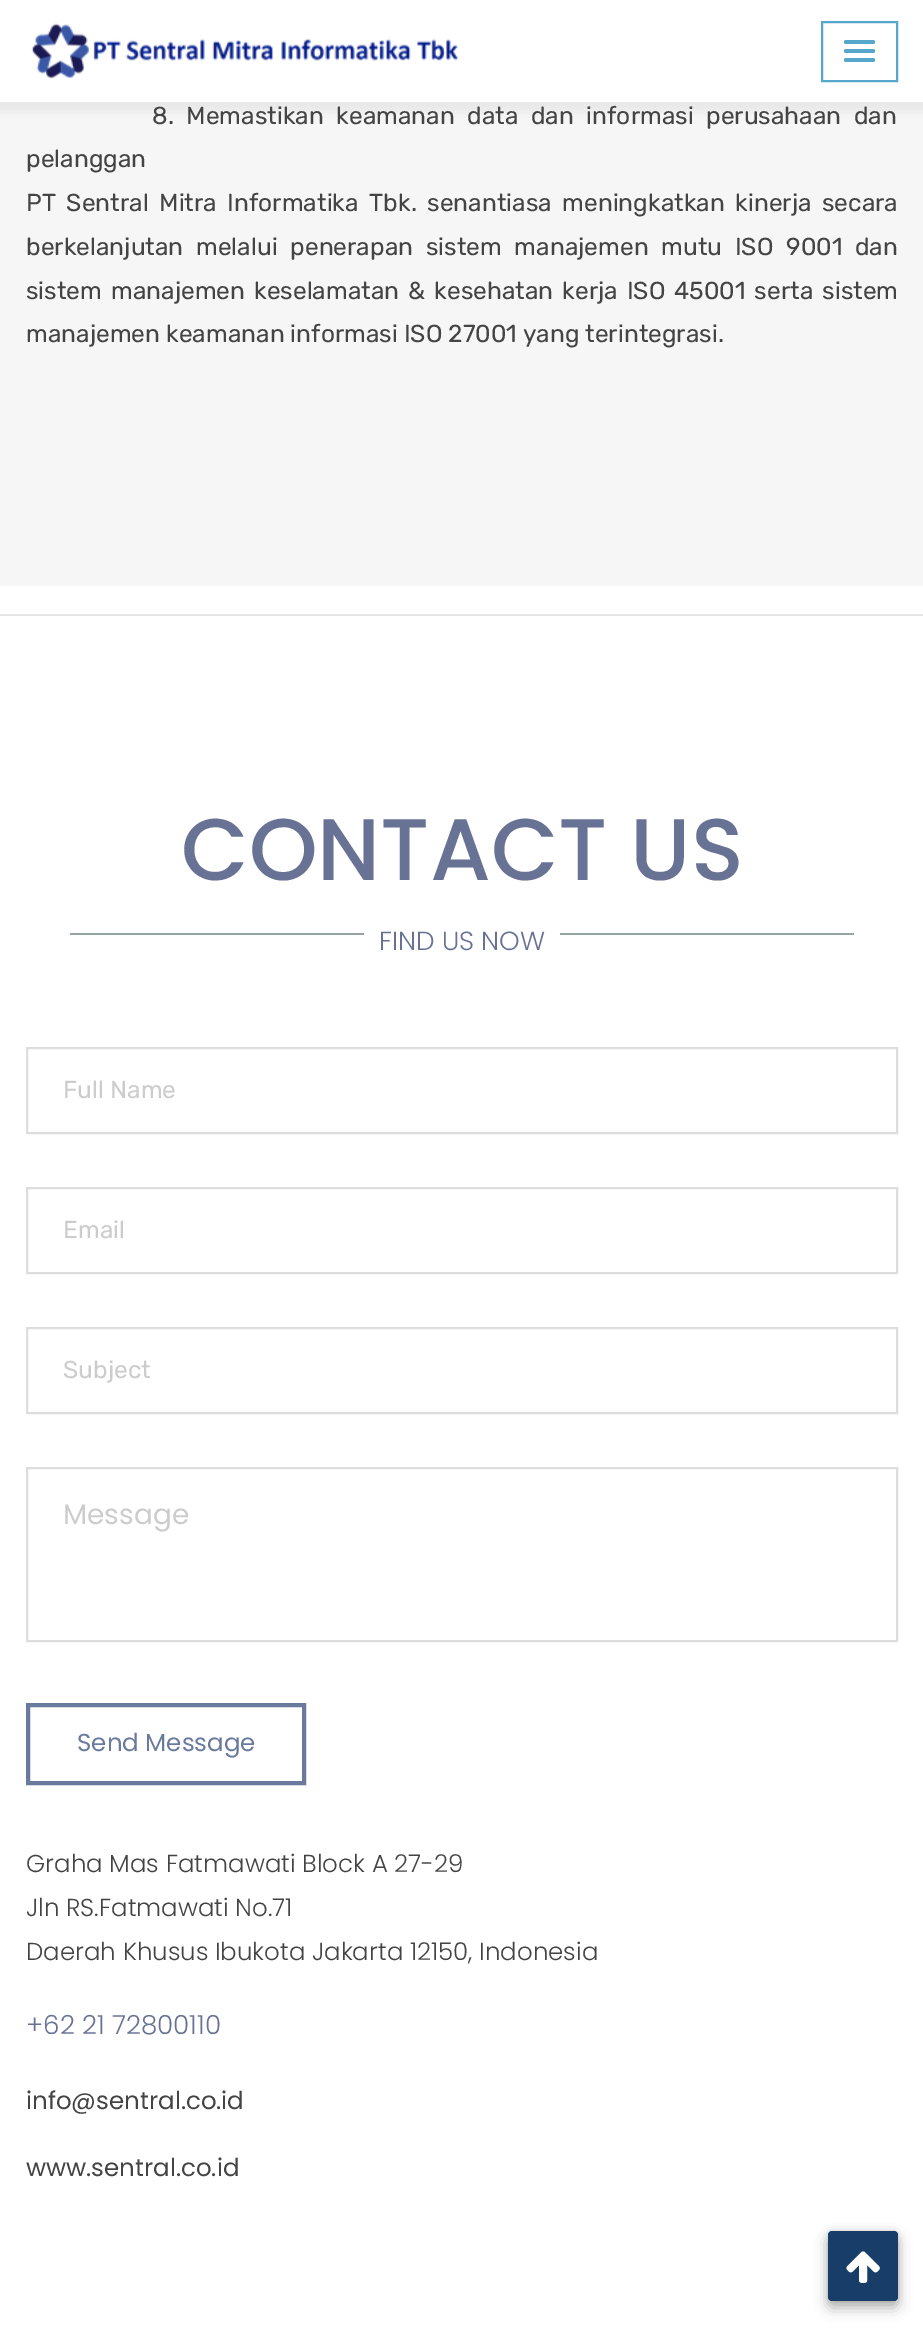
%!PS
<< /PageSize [923 2332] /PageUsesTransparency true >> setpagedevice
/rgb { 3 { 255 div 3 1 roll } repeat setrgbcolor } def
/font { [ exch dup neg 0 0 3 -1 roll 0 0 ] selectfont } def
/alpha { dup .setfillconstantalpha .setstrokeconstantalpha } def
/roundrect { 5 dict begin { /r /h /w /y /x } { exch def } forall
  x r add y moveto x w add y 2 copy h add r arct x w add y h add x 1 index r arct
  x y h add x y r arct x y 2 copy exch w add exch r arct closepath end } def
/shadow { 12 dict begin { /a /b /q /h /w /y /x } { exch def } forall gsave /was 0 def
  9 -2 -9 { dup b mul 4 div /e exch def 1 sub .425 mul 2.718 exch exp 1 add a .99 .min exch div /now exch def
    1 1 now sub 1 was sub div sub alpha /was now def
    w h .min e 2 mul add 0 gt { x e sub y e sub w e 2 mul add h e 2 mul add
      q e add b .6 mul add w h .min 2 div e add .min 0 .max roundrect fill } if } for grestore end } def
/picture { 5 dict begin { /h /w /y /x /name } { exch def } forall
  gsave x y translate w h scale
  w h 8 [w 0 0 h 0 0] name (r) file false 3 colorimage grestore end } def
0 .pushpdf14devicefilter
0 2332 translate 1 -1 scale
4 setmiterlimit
255 255 255 rgb
0 0 923 2332 rectfill
246 246 246 rgb
0 102 923 484 rectfill
0 0 0 rgb
-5 0 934 112 0 5 0.06 shadow
255 255 255 rgb
0 0 923 102 rectfill
(img/1.rgb) 31 23 428 56 picture
85 168 204 rgb
2 setlinewidth
822 22 75 59 rectstroke
844 40 31 4 2 roundrect fill
844 49 31 4 2 roundrect fill
844 58 31 4 2 roundrect fill
[
  [0 614 923 2 230 230 230]
  [70 933 784 2 149 165 166]
  [364 933 196 2 255 255 255]
] { aload pop rgb rectfill } forall
221 221 221 rgb
27 1048 870 85 rectstroke
27 1188 870 85 rectstroke
27 1328 870 85 rectstroke
27 1468 870 173 rectstroke
105 122 157 rgb
4 setlinewidth
28 1705 276 78 rectstroke
0 0 0 rgb
828 2238 70 70 4 7 0.28 shadow
828 2231 70 70 4 3.5 0.14 shadow
24 61 104 rgb
828 2231 70 70 4 roundrect fill
(img/2.rgb) 846 2251 34 32 picture
/Rubik-Regular 24.5 font
68 68 68 rgb
152 124 moveto 6.5 0 32 (8. Memastikan keamanan data dan informasi perusahaan dan) widthshow
26 167 moveto (pelanggan) show
26 211 moveto 4.5 0 32 (PT Sentral Mitra Informatika Tbk. senantiasa meningkatkan kinerja secara) widthshow
26 255 moveto 6.75 0 32 (berkelanjutan melalui penerapan sistem manajemen mutu ISO 9001 dan) widthshow
26 299 moveto 3 0 32 (sistem manajemen keselamatan & kesehatan kerja ISO 45001 serta sistem) widthshow
26 342 moveto (manajemen keamanan informasi ISO 27001 yang terintegrasi.) show
/Poppins-Medium 87.5 font
103 114 148 rgb
181 880 moveto (CONTACT US) show
/Poppins-Light 26.25 font
379 950 moveto (FIND US NOW) show
/Rubik-Regular 24.5 font
204 204 204 rgb
[
  [(Full Name) 63 1098]
  [(Email) 63 1238]
  [(Subject) 63 1378]
] { aload pop moveto show } forall
/Poppins-Regular 28 font
63 1524 moveto (Message) show
/Poppins-Regular 24.5 font
105 122 157 rgb
77 1751 moveto (Send Message) show
/Poppins-Light 24.5 font
68 68 68 rgb
[
  [(Graha Mas Fatmawati Block A 27-29) 26 1872]
  [(Jln RS.Fatmawati No.71) 26 1916]
  [(Daerah Khusus Ibukota Jakarta 12150, Indonesia) 26 1960]
] { aload pop moveto show } forall
/Poppins-Light 26.25 font
103 114 148 rgb
26 2034 moveto (+62 21 72800110) show
/Poppins-Regular 24.5 font
68 68 68 rgb
26 2109 moveto (info@sentral.co.id) show
26 2176 moveto (www.sentral.co.id) show
.poppdf14devicefilter showpage
